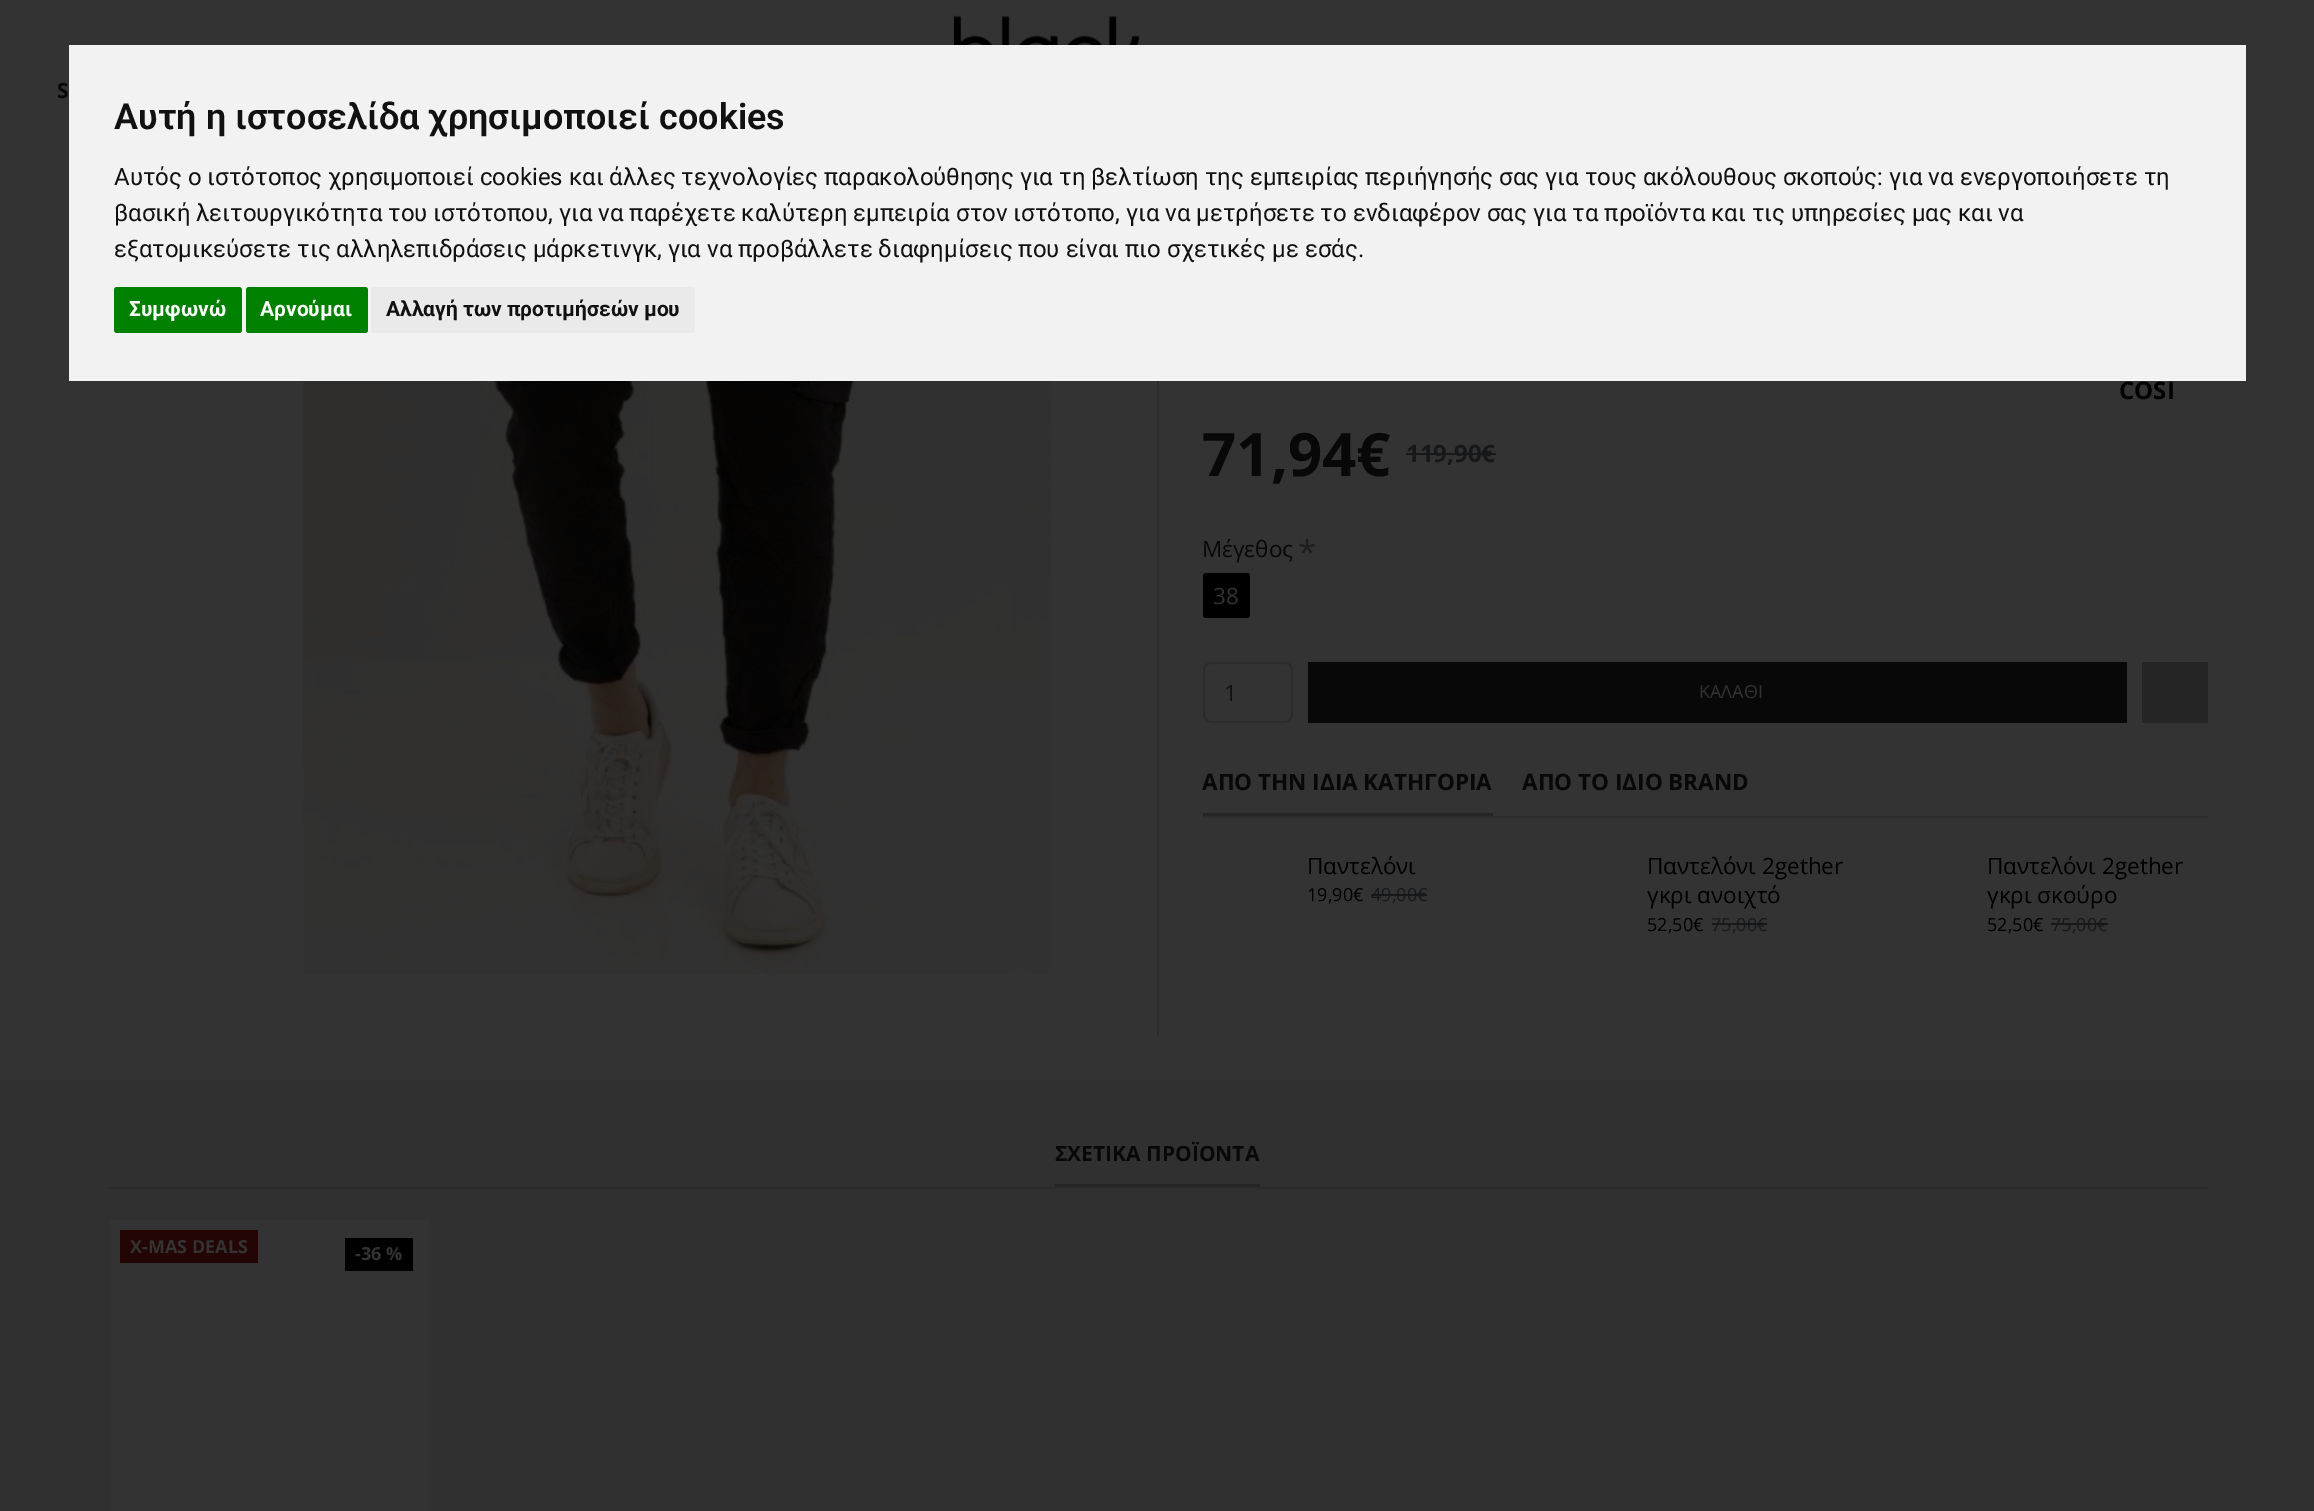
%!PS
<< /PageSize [2314 1511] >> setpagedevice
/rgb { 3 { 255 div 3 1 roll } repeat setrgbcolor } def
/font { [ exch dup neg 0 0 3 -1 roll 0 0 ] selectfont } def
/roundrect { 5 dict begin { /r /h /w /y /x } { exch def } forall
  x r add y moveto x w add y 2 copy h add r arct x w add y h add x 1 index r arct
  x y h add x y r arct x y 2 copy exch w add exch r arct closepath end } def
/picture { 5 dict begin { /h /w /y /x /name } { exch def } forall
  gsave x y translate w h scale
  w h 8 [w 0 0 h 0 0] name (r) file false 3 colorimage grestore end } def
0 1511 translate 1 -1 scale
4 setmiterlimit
51 51 51 rgb
0 0 2314 1511 rectfill
(img/1.rgb) 953 15 187 30 picture
44 44 44 rgb
1157 381 2 654 rectfill
(img/2.rgb) 299 381 753 593 picture
23 24 26 rgb
1406 453 90 2 rectfill
0 0 0 rgb
1203 573 47 45 3 roundrect fill
44 44 44 rgb
2 setlinewidth
1204 663 88 59 7 roundrect stroke
[
  [1308 662 819 61 8 8 9]
  [2142 662 66 61 37 37 37]
  [1203 816 1005 2 44 44 44]
  [1203 813 290 3 37 37 37]
  [1371 894 56 2 23 24 26]
  [1712 923 55 2 23 24 26]
  [2051 923 57 2 23 24 26]
  [0 1080 2314 431 48 48 48]
  [108 1187 2100 2 44 44 44]
  [1055 1184 205 3 37 37 37]
  [110 1220 320 291 51 51 51]
  [120 1230 138 33 35 5 5]
  [345 1238 68 33 0 0 0]
  [69 45 2177 336 242 242 242]
] { aload pop rgb rectfill } forall
0 128 0 rgb
114 287 128 46 3 roundrect fill
246 287 122 46 3 roundrect fill
234 234 234 rgb
371 287 324 46 3 roundrect fill
/OpenSans-Bold 21 font
8 8 9 rgb
57 98 moveto (S) show
/OpenSans-Bold 24 font
0 0 0 rgb
2119 399 moveto (COSI) show
/OpenSans-Bold 60 font
8 8 9 rgb
1202 476 moveto (71,94€) show
/OpenSans-Bold 24 font
23 24 26 rgb
1406 462 moveto (119,90€) show
/OpenSans-Regular 22.5 font
8 8 9 rgb
1202 557 moveto (Μέγεθος) show
/OpenSans-Regular 33 font
29 29 29 rgb
1298 564 moveto (*) show
/OpenSans-Regular 22.5 font
51 51 51 rgb
1213 604 moveto (38) show
17 17 17 rgb
1224 701 moveto (1) show
/OpenSans-Regular 18 font
51 51 51 rgb
1699 698 moveto (ΚΑΛΑΘΙ) show
/OpenSans-Bold 22.5 font
8 8 9 rgb
1202 790 moveto (ΑΠΟ ΤΗΝ ΙΔΙΑ ΚΑΤΗΓΟΡΙΑ) show
1522 790 moveto (ΑΠΟ ΤΟ ΙΔΙΟ BRAND) show
/OpenSans-Regular 22.5 font
0 0 0 rgb
1307 874 moveto (Παντελόνι) show
/OpenSans-Regular 18 font
1307 901 moveto (19,90€) show
23 24 26 rgb
1371 901 moveto (49,00€) show
/OpenSans-Regular 22.5 font
0 0 0 rgb
1647 874 moveto (Παντελόνι 2gether) show
1647 903 moveto (γκρι ανοιχτό) show
/OpenSans-Regular 18 font
1647 931 moveto (52,50€) show
23 24 26 rgb
1711 931 moveto (75,00€) show
/OpenSans-Regular 22.5 font
0 0 0 rgb
1987 874 moveto (Παντελόνι 2gether) show
1987 903 moveto (γκρι σκούρο) show
/OpenSans-Regular 18 font
1987 931 moveto (52,50€) show
23 24 26 rgb
2051 931 moveto (75,00€) show
/OpenSans-Bold 21 font
8 8 9 rgb
1055 1161 moveto (ΣΧΕΤΙΚΑ ΠΡΟΪΟΝΤΑ) show
/OpenSans-Bold 18 font
51 51 51 rgb
130 1253 moveto (X-MAS DEALS) show
355 1260 moveto (-36 %) show
/Roboto-SemiBold 36 font
17 17 17 rgb
114 129 moveto (Αυτή η ιστοσελίδα χρησιμοποιεί cookies) show
/Roboto-Regular 24 font
[
  [(Αυτός ο ιστότοπος χρησιμοποιεί cookies και άλλες τεχνολογίες παρακολούθησης για τη βελτίωση της εμπειρίας περιήγησής σας για τους ακόλουθους σκοπούς: για να ενεργοποιήσετε τη) 114 185]
  [(βασική λειτουργικότητα του ιστότοπου, για να παρέχετε καλύτερη εμπειρία στον ιστότοπο, για να μετρήσετε το ενδιαφέρον σας για τα προϊόντα και τις υπηρεσίες μας και να) 114 221]
  [(εξατομικεύσετε τις αλληλεπιδράσεις μάρκετινγκ, για να προβάλλετε διαφημίσεις που είναι πιο σχετικές με εσάς.) 114 257]
] { aload pop moveto show } forall
/Roboto-Bold 21 font
255 255 255 rgb
129 316 moveto (Συμφωνώ) show
260 316 moveto (Αρνούμαι) show
17 17 17 rgb
386 316 moveto (Αλλαγή των προτιμήσεών μου) show
showpage
